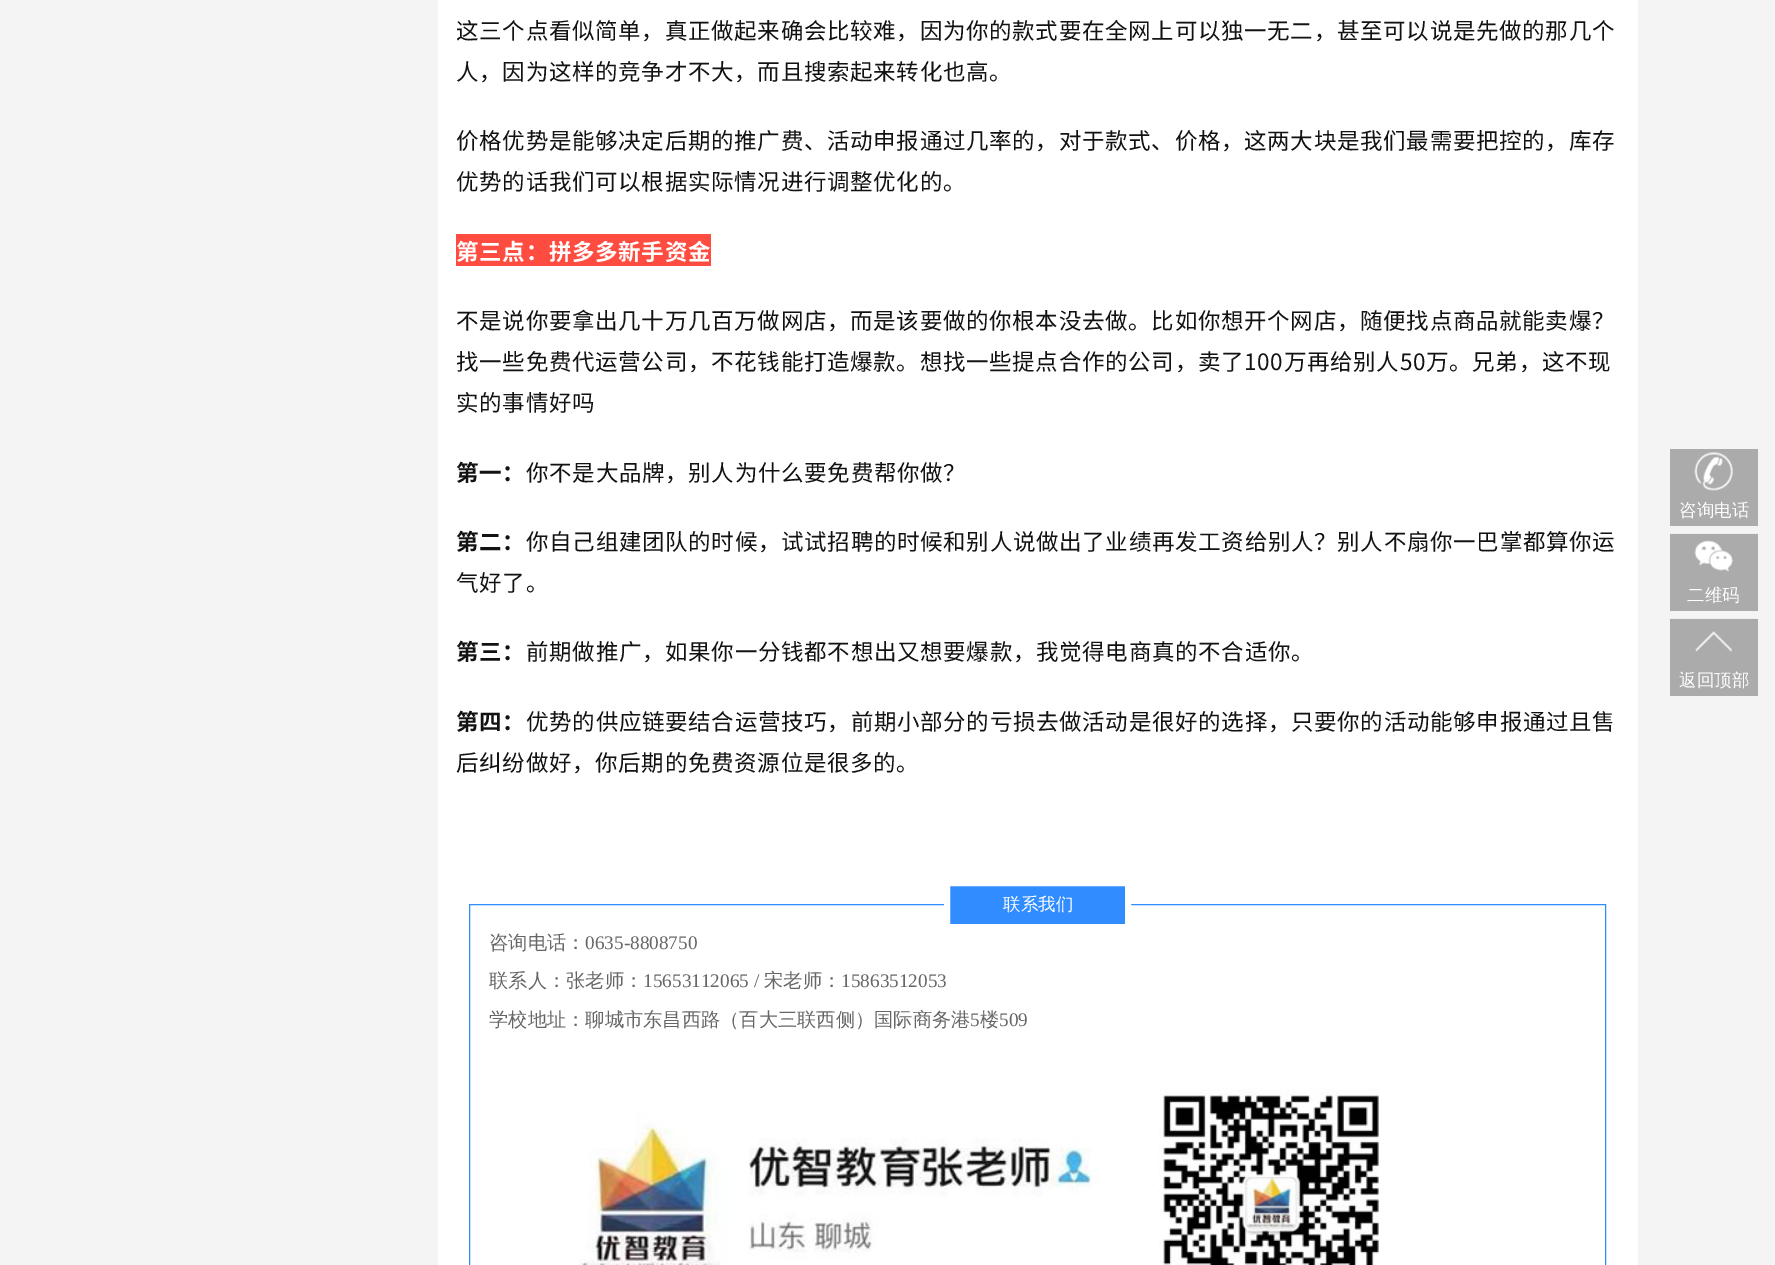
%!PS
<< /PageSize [1775 1265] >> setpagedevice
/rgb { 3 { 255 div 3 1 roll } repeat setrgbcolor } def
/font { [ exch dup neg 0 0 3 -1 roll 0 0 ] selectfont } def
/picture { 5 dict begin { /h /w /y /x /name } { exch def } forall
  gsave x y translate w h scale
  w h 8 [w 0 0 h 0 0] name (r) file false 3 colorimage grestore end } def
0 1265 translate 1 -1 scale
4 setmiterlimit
244 244 244 rgb
0 0 1775 1265 rectfill
255 255 255 rgb
438 0 1200 1265 rectfill
255 76 65 rgb
456 234 255 32 rectfill
49 141 255 rgb
469.5 904.5 1136 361 rectstroke
947 883 moveto 1128 883 lineto 1128 927 lineto 947 927 lineto closepath gsave fill grestore
255 255 255 rgb
6 setlinewidth
stroke
(img/1.rgb) 579 1088 800 177 picture
171 171 171 rgb
1670 449 88 77 rectfill
(img/2.rgb) 1694 452 39 39 picture
1670 534 88 77 rectfill
238 238 238 rgb
1670 533 88 1 rectfill
(img/3.rgb) 1694 540 39 32 picture
171 171 171 rgb
1670 619 88 77 rectfill
238 238 238 rgb
1670 618 88 1 rectfill
(img/4.rgb) 1695 631 37 21 picture
/NotoSansCJKSC-Regular 22.5 font
18 18 18 rgb
456 39 moveto 0.68 0 (这三个点看似简单，真正做起来确会比较难，因为你的款式要在全网上可以独一无二，甚至可以说是先做的那几个) ashow
456 80 moveto 0.68 0 (人，因为这样的竞争才不大，而且搜索起来转化也高。) ashow
456 149 moveto 0.68 0 (价格优势是能够决定后期的推广费、活动申报通过几率的，对于款式、价格，这两大块是我们最需要把控的，库存) ashow
456 190 moveto 0.68 0 (优势的话我们可以根据实际情况进行调整优化的。) ashow
/NotoSansCJKSC-Bold 22.5 font
255 255 255 rgb
456 260 moveto 0.68 0 (第三点：拼多多新手资金) ashow
/NotoSansCJKSC-Regular 22.5 font
18 18 18 rgb
456 329 moveto 0.68 0 (不是说你要拿出几十万几百万做网店，而是该要做的你根本没去做。比如你想开个网店，随便找点商品就能卖爆？) ashow
456 370 moveto 0.68 0 (找一些免费代运营公司，不花钱能打造爆款。想找一些提点合作的公司，卖了100万再给别人50万。兄弟，这不现) ashow
456 411 moveto 0.68 0 (实的事情好吗) ashow
/NotoSansCJKSC-Bold 22.5 font
456 481 moveto 0.68 0 (第一：) ashow
/NotoSansCJKSC-Regular 22.5 font
526 481 moveto 0.68 0 (你不是大品牌，别人为什么要免费帮你做？) ashow
/NotoSansCJKSC-Bold 22.5 font
456 550 moveto 0.68 0 (第二：) ashow
/NotoSansCJKSC-Regular 22.5 font
526 550 moveto 0.68 0 (你自己组建团队的时候，试试招聘的时候和别人说做出了业绩再发工资给别人？别人不扇你一巴掌都算你运) ashow
456 591 moveto 0.68 0 (气好了。) ashow
/NotoSansCJKSC-Bold 22.5 font
456 660 moveto 0.68 0 (第三：) ashow
/NotoSansCJKSC-Regular 22.5 font
526 660 moveto 0.68 0 (前期做推广，如果你一分钱都不想出又想要爆款，我觉得电商真的不合适你。) ashow
/NotoSansCJKSC-Bold 22.5 font
456 730 moveto 0.68 0 (第四：) ashow
/NotoSansCJKSC-Regular 22.5 font
526 730 moveto 0.68 0 (优势的供应链要结合运营技巧，前期小部分的亏损去做活动是很好的选择，只要你的活动能够申报通过且售) ashow
456 771 moveto 0.68 0 (后纠纷做好，你后期的免费资源位是很多的。) ashow
/WenQuanYiZenHei-Medium 17.5 font
255 255 255 rgb
1003 910 moveto (联系我们) show
/WenQuanYiZenHei-Medium 19.25 font
102 102 102 rgb
489 949 moveto (咨询电话：) show
/LiberationSerif-Regular 19.25 font
585 949 moveto (0635-8808750) show
/WenQuanYiZenHei-Medium 19.25 font
489 987 moveto (联系人：张老师：) show
/LiberationSerif-Regular 19.25 font
643 987 moveto (15653112065 /) show
/WenQuanYiZenHei-Medium 19.25 font
764 987 moveto (宋老师：) show
/LiberationSerif-Regular 19.25 font
841 987 moveto (15863512053) show
/WenQuanYiZenHei-Medium 19.25 font
489 1026 moveto (学校地址：聊城市东昌西路（百大三联西侧）国际商务港) show
/LiberationSerif-Regular 19.25 font
970 1026 moveto (5) show
/WenQuanYiZenHei-Medium 19.25 font
980 1026 moveto (楼) show
/LiberationSerif-Regular 19.25 font
999 1026 moveto (509) show
/WenQuanYiZenHei-Medium 17.5 font
255 255 255 rgb
[
  [(咨询电话) 1679 516]
  [(二维码) 1687 601]
  [(返回顶部) 1679 686]
] { aload pop moveto show } forall
showpage
